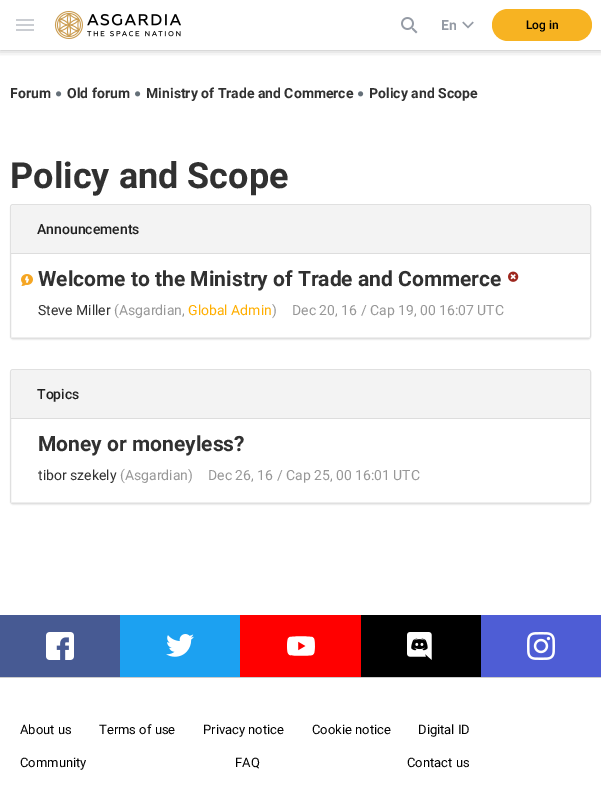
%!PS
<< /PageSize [601 791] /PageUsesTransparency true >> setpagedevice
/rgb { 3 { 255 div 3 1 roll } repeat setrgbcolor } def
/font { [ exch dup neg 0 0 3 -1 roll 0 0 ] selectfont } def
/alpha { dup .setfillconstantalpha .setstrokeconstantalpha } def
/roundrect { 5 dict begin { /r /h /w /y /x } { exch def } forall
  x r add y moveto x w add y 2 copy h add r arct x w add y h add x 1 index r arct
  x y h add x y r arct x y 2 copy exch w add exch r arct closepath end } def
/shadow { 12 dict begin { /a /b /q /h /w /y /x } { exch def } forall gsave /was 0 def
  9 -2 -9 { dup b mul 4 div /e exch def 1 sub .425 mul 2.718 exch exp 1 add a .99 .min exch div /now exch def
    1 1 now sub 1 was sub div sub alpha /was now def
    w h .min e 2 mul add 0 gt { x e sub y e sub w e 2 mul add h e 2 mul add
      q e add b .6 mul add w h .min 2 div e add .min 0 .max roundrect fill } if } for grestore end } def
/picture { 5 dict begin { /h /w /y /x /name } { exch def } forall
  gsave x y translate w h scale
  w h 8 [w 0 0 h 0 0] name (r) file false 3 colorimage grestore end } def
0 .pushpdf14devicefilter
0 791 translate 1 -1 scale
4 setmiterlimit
255 255 255 rgb
0 0 601 791 rectfill
gsave
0 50 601 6 rectclip
0 0 0 rgb
0 0 601 50 0 4 0.3 shadow
grestore
(img/1.rgb) 16 19 18 12 picture
(img/2.rgb) 54 10 127 30 picture
(img/3.rgb) 401 17 17 17 picture
(img/4.rgb) 462 21 12 8 picture
247 179 34 rgb
492 9 100 32 16 roundrect fill
(img/5.rgb) 56 91 6 6 picture
(img/5.rgb) 135 91 6 6 picture
(img/5.rgb) 358 91 6 6 picture
0 0 0 rgb
10 205 581 135 3 0.5 0.05 shadow
255 255 255 rgb
10.5 204.5 580 134 2.5 roundrect gsave fill grestore
224 224 224 rgb
stroke
243 243 243 rgb
14 205 moveto 587 205 lineto 588.5 205 590 206.5 590 208 curveto 590 254 lineto 11 254 lineto 11 208 lineto 11 206.5 12.5 205 14 205 curveto closepath fill
221 221 221 rgb
11 253 579 1 rectfill
238 238 238 rgb
11 337 579 1 rectfill
(img/6.rgb) 21 274 12 12 picture
(img/7.rgb) 508 271 11 11 picture
0 0 0 rgb
10 370 581 135 3 0.5 0.05 shadow
255 255 255 rgb
10.5 369.5 580 134 2.5 roundrect gsave fill grestore
224 224 224 rgb
stroke
243 243 243 rgb
14 370 moveto 587 370 lineto 588.5 370 590 371.5 590 373 curveto 590 419 lineto 11 419 lineto 11 373 lineto 11 371.5 12.5 370 14 370 curveto closepath fill
[
  [11 418 579 1 221 221 221]
  [11 502 579 1 238 238 238]
  [0 615 120 62 71 90 147]
] { aload pop rgb rectfill } forall
(img/8.rgb) 46 632 28 28 picture
28 161 241 rgb
120 615 120 62 rectfill
(img/9.rgb) 166 634 28 23 picture
255 0 0 rgb
240 615 121 62 rectfill
(img/10.rgb) 287 636 28 20 picture
0 0 0 rgb
361 615 120 62 rectfill
(img/11.rgb) 407 632 25 28 picture
78 93 213 rgb
481 615 120 62 rectfill
(img/12.rgb) 527 632 28 28 picture
204 204 204 rgb
0 677 601 1 rectfill
/Roboto-Bold 14 font
149 155 165 rgb
441 30 moveto (En) show
/Roboto-Medium 12 font
0 0 0 rgb
526 29 moveto (Log in) show
/Roboto-Bold 14 font
49 49 49 rgb
[
  [(Forum) 10 98]
  [(Old forum) 67 98]
  [(Ministry of Trade and Commerce) 146 98]
  [(Policy and Scope) 369 98]
] { aload pop moveto show } forall
/Roboto-Bold 36 font
10 188 moveto (Policy and Scope) show
/Roboto-Medium 14 font
32 32 32 rgb
37 234 moveto (Announcements) show
/Roboto-Bold 21 font
49 49 49 rgb
38 286 moveto (Welcome to the Ministry of Trade and Commerce) show
/Roboto-Regular 14 font
38 315 moveto (Steve Miller) show
151 151 151 rgb
114 315 moveto (\(Asgardian,) show
255 174 0 rgb
188 315 moveto (Global Admin) show
151 151 151 rgb
272 315 moveto (\)) show
292 315 moveto (Dec 20, 16 / Cap 19, 00 16:07 UTC) show
/Roboto-Medium 14 font
32 32 32 rgb
37 399 moveto (Topics) show
/Roboto-Bold 21 font
49 49 49 rgb
38 451 moveto (Money or moneyless?) show
/Roboto-Regular 14 font
38 480 moveto (tibor szekely) show
151 151 151 rgb
120 480 moveto (\(Asgardian\)) show
208 480 moveto (Dec 26, 16 / Cap 25, 00 16:01 UTC) show
/Roboto-Regular 13 font
0 0 0 rgb
[
  [(About us) 20 734]
  [(Terms of use) 99 734]
  [(Privacy notice) 203 734]
  [(Cookie notice) 312 734]
  [(Digital ID) 418 734]
  [(Community) 20 767]
  [(FAQ) 235 767]
  [(Contact us) 407 767]
] { aload pop moveto show } forall
.poppdf14devicefilter showpage
